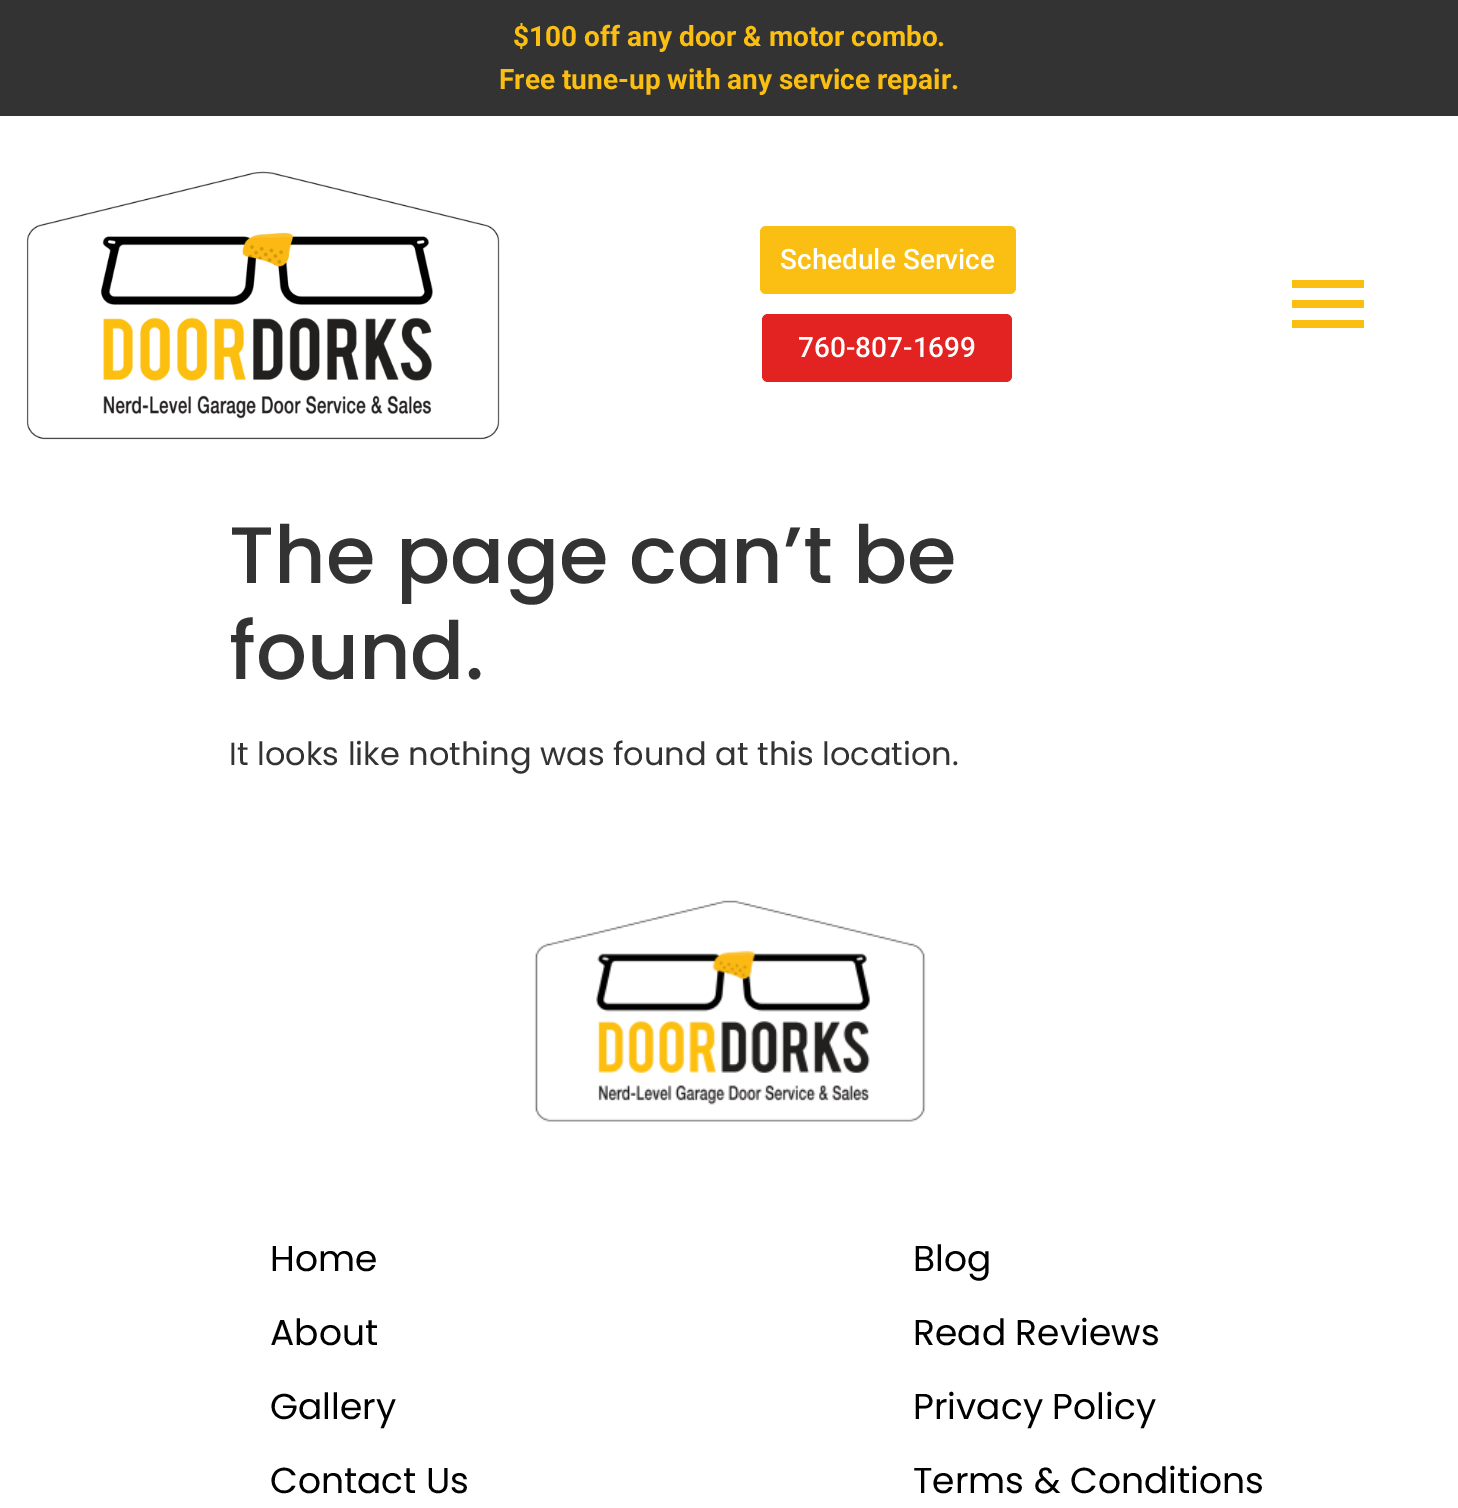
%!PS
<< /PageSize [1458 1508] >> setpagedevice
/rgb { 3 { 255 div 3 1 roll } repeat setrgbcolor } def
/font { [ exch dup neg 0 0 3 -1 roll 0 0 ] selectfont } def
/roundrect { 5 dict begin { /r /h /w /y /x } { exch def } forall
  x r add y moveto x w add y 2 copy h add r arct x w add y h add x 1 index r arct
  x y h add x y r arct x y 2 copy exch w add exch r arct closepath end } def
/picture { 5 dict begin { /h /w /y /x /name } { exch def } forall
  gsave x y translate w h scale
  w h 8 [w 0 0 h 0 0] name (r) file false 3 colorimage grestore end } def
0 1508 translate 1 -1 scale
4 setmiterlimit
255 255 255 rgb
0 0 1458 1508 rectfill
51 51 51 rgb
0 0 1458 116 rectfill
(img/1.rgb) 26 171 474 269 picture
250 191 18 rgb
760 226 256 68 6 roundrect fill
226 35 33 rgb
762 314 250 68 6 roundrect fill
[
  [1292 280 72 8 250 191 18]
  [1292 300 72 8 250 191 18]
  [1292 320 72 8 250 191 18]
] { aload pop rgb rectfill } forall
(img/2.rgb) 534 900 392 222 picture
/Roboto-Bold 28 font
513 46 moveto ($100 off any door & motor combo.) show
499 89 moveto (Free tune-up with any service repair.) show
/Roboto-Medium 28 font
255 255 255 rgb
780 269 moveto (Schedule Service) show
798 357 moveto (760-807-1699) show
/Poppins-Medium 80 font
51 51 51 rgb
229 583 moveto (The page can’t be) show
229 679 moveto (found.) show
/Poppins-Regular 32 font
229 765 moveto (It looks like nothing was found at this location.) show
/Poppins-Regular 36 font
0 0 0 rgb
[
  [(Home) 270 1271]
  [(About) 270 1345]
  [(Gallery) 270 1419]
  [(Contact Us) 270 1493]
  [(Blog) 913 1271]
  [(Read Reviews) 913 1345]
  [(Privacy Policy) 913 1419]
  [(Terms & Conditions) 913 1493]
] { aload pop moveto show } forall
showpage
